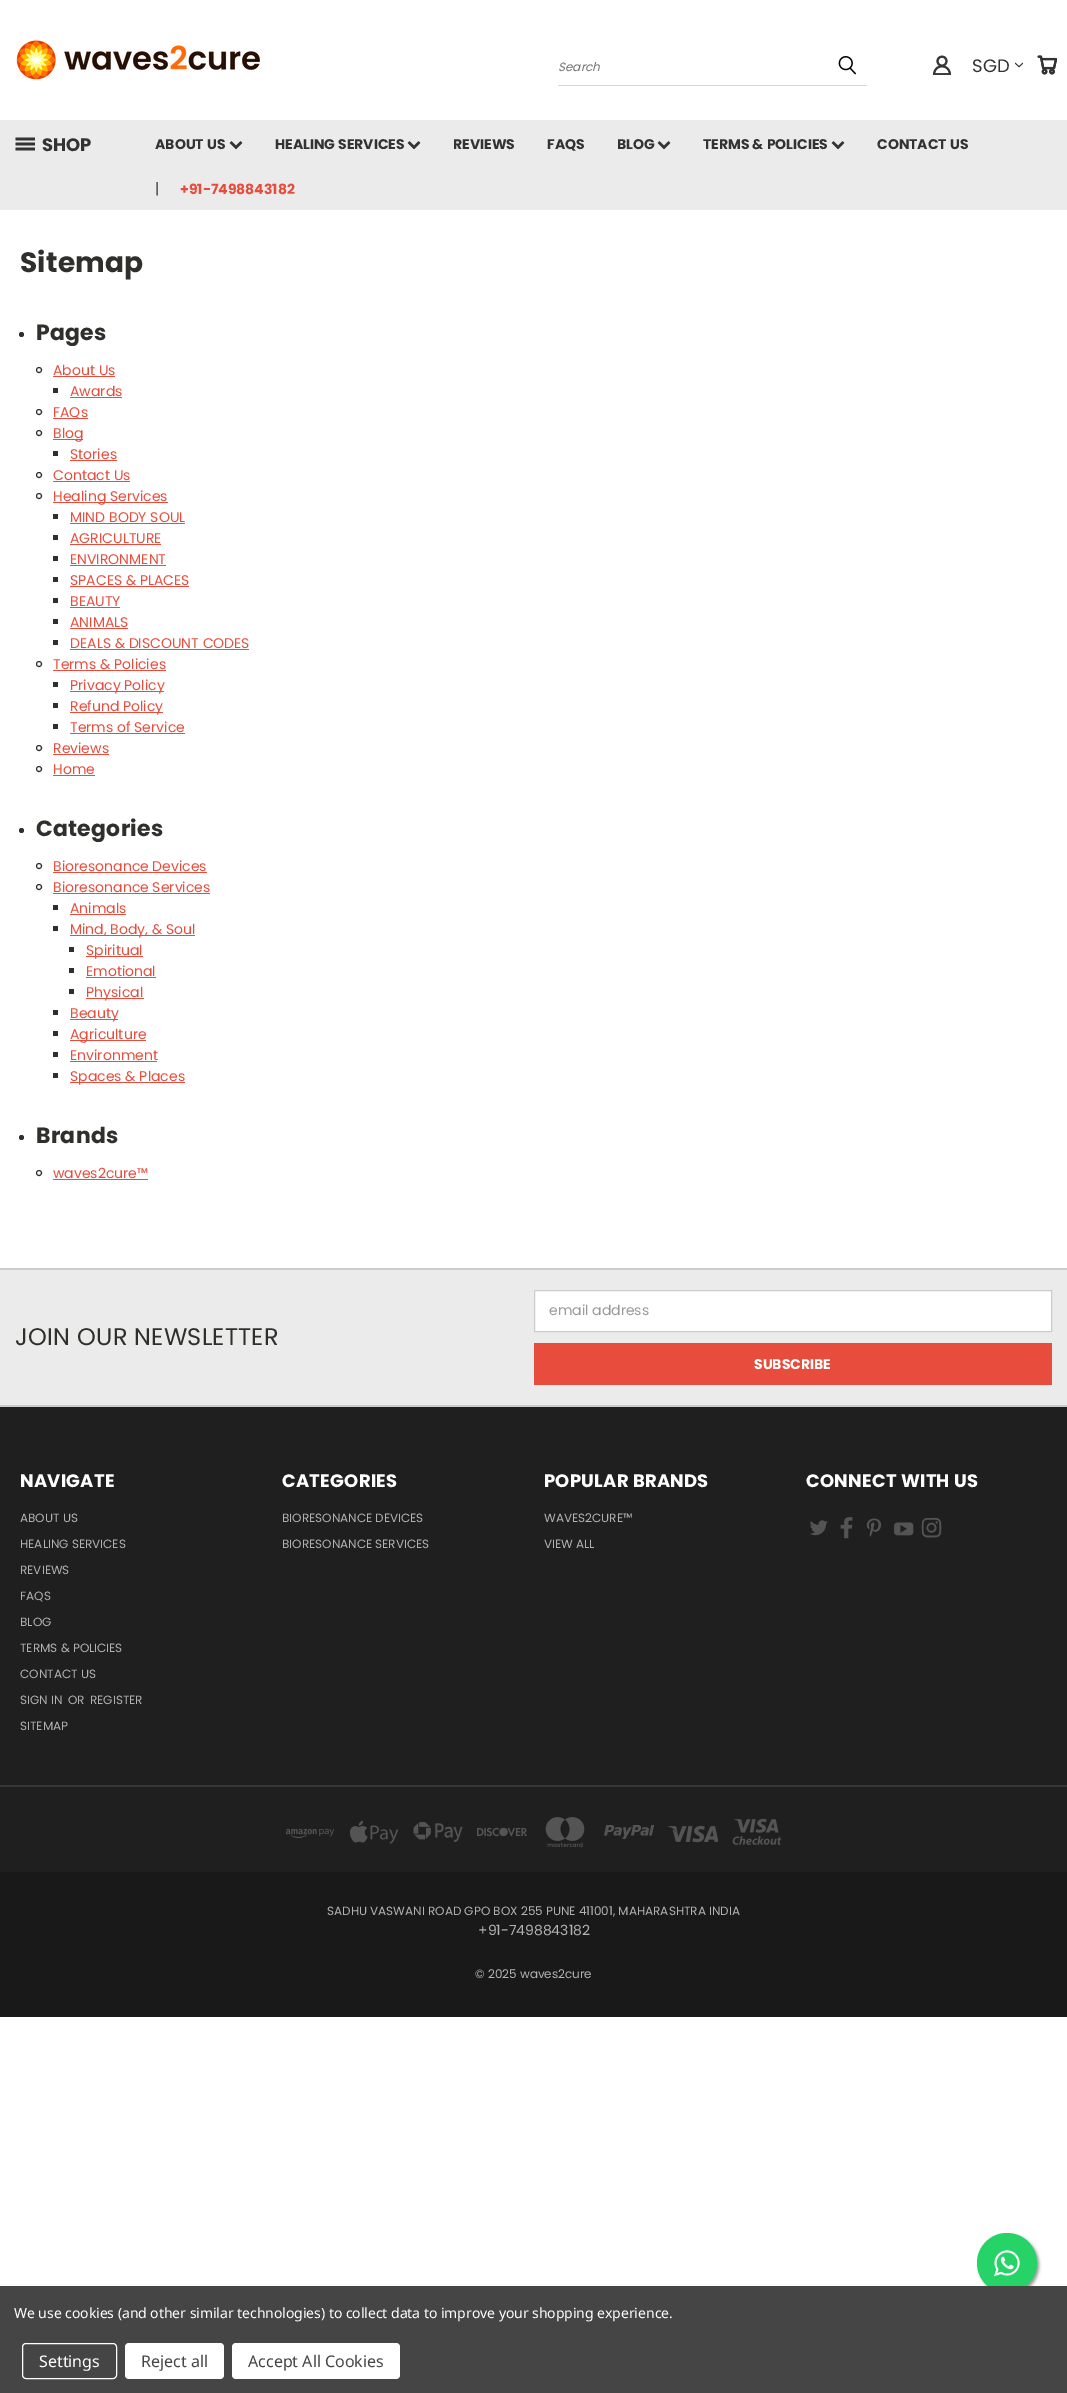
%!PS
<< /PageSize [1067 2393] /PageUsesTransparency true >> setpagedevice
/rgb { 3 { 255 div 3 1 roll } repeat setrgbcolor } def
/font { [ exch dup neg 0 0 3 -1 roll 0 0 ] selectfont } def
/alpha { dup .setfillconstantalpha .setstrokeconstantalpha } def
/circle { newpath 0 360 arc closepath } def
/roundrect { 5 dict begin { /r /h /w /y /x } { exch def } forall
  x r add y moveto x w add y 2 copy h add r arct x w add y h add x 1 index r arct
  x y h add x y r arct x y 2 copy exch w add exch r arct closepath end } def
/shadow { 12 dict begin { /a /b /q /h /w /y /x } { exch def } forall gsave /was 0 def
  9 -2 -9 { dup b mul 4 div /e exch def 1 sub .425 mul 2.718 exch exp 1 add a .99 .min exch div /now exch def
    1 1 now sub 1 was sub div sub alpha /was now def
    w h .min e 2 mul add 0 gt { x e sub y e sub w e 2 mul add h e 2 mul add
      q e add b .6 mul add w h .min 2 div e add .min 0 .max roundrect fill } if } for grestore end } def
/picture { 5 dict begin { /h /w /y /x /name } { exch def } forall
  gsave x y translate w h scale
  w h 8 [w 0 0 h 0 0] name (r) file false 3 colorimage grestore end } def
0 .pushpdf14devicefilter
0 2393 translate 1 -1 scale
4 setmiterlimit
255 255 255 rgb
0 0 1067 2393 rectfill
(img/1.rgb) 16 40 244 40 picture
215 215 215 rgb
558 85 309 1 rectfill
(img/2.rgb) 838 56 18 19 picture
(img/3.rgb) 933 55 18 20 picture
(img/4.rgb) 1015 62 8 6 picture
(img/5.rgb) 1037 55 20 20 picture
235 235 235 rgb
0 120 1067 90 rectfill
(img/6.rgb) 15 137 20 14 picture
(img/7.rgb) 229 141 14 9 picture
(img/7.rgb) 407 141 14 9 picture
(img/7.rgb) 657 141 14 9 picture
(img/7.rgb) 831 141 14 9 picture
47 47 43 rgb
21.5 334.5 2.5 circle fill
39 370 2.5 circle stroke
[
  [53 376 62 1 231 76 60]
  [53 388 5 5 47 47 43]
  [70 397 52 1 231 76 60]
] { aload pop rgb rectfill } forall
47 47 43 rgb
39 412 2.5 circle stroke
231 76 60 rgb
53 418 35 1 rectfill
47 47 43 rgb
39 433 2.5 circle stroke
[
  [53 439 30 1 231 76 60]
  [53 451 5 5 47 47 43]
  [70 460 47 1 231 76 60]
] { aload pop rgb rectfill } forall
47 47 43 rgb
39 475 2.5 circle stroke
231 76 60 rgb
53 481 77 1 rectfill
47 47 43 rgb
39 496 2.5 circle stroke
[
  [53 502 115 1 231 76 60]
  [53 514 5 5 47 47 43]
  [70 523 115 1 231 76 60]
  [53 535 5 5 47 47 43]
  [70 544 91 1 231 76 60]
  [53 556 5 5 47 47 43]
  [70 565 96 1 231 76 60]
  [53 577 5 5 47 47 43]
  [70 586 119 1 231 76 60]
  [53 598 5 5 47 47 43]
  [70 607 50 1 231 76 60]
  [53 619 5 5 47 47 43]
  [70 628 58 1 231 76 60]
  [53 640 5 5 47 47 43]
  [70 649 179 1 231 76 60]
] { aload pop rgb rectfill } forall
47 47 43 rgb
39 664 2.5 circle stroke
[
  [53 670 113 1 231 76 60]
  [53 682 5 5 47 47 43]
  [70 691 94 1 231 76 60]
  [53 703 5 5 47 47 43]
  [70 712 93 1 231 76 60]
  [53 724 5 5 47 47 43]
  [70 733 115 1 231 76 60]
] { aload pop rgb rectfill } forall
47 47 43 rgb
39 748 2.5 circle stroke
231 76 60 rgb
53 754 56 1 rectfill
47 47 43 rgb
39 769 2.5 circle stroke
231 76 60 rgb
53 775 42 1 rectfill
47 47 43 rgb
21.5 830.5 2.5 circle fill
39 866 2.5 circle stroke
231 76 60 rgb
53 872 154 1 rectfill
47 47 43 rgb
39 887 2.5 circle stroke
[
  [53 893 157 1 231 76 60]
  [53 905 5 5 47 47 43]
  [70 914 56 1 231 76 60]
  [53 926 5 5 47 47 43]
  [70 935 125 1 231 76 60]
  [69 947 5 5 47 47 43]
  [86 956 57 1 231 76 60]
  [69 968 5 5 47 47 43]
  [86 977 70 1 231 76 60]
  [69 989 5 5 47 47 43]
  [86 998 58 1 231 76 60]
  [53 1010 5 5 47 47 43]
  [70 1019 48 1 231 76 60]
  [53 1031 5 5 47 47 43]
  [70 1040 76 1 231 76 60]
  [53 1052 5 5 47 47 43]
  [70 1061 87 1 231 76 60]
  [53 1073 5 5 47 47 43]
  [70 1082 115 1 231 76 60]
] { aload pop rgb rectfill } forall
47 47 43 rgb
21.5 1137.5 2.5 circle fill
39 1173 2.5 circle stroke
[
  [53 1179 95 1 231 76 60]
  [0 1270 1067 135 235 235 235]
  [0 1268 1067 2 205 204 204]
] { aload pop rgb rectfill } forall
255 255 255 rgb
534.5 1290.5 moveto 1051.5 1290.5 lineto 1051.5 1331.5 lineto 534.5 1331.5 lineto closepath gsave fill grestore
204 204 204 rgb
stroke
[
  [534 1343 518 42 231 76 60]
  [0 1407 1067 465 31 31 31]
  [0 1405 1067 2 205 204 204]
] { aload pop rgb rectfill } forall
(img/8.rgb) 810 1520 18 16 picture
(img/9.rgb) 840 1517 13 22 picture
(img/10.rgb) 866 1518 15 19 picture
(img/11.rgb) 894 1522 20 14 picture
(img/12.rgb) 921 1517 21 21 picture
54 54 54 rgb
0 1785 1067 2 rectfill
(img/13.rgb) 286 1828 49 10 picture
(img/14.rgb) 350 1820 49 24 picture
(img/15.rgb) 413 1822 50 20 picture
(img/16.rgb) 477 1827 50 10 picture
(img/17.rgb) 545 1817 40 30 picture
(img/18.rgb) 604 1825 50 14 picture
(img/19.rgb) 668 1825 50 18 picture
(img/20.rgb) 732 1818 50 27 picture
25 25 25 rgb
0 1872 1067 145 rectfill
153 153 153 rgb
979 2235 60 60 30 1.5 1 shadow
37 211 102 rgb
1007 2263 30 circle fill
(img/21.rgb) 994 2250 26 27 picture
69 69 69 rgb
0 2286 1067 107 rectfill
255 255 255 rgb
22.5 2343.5 94 35 3.5 roundrect stroke
125 2343 99 36 4 roundrect fill
232 2343 168 36 4 roundrect fill
/Poppins-Italic 12 font
112 112 110 rgb
558 71 moveto (Search) show
/Poppins-Regular 18 font
51 51 51 rgb
972 72 moveto (SGD) show
/Poppins-Bold 18 font
42 151 moveto (SHOP) show
/Poppins-Bold 14 font
[
  [(ABOUT US) 155 149]
  [(HEALING SERVICES) 275 149]
  [(REVIEWS) 453 149]
  [(FAQS) 547 149]
  [(BLOG) 617 149]
  [(TERMS & POLICIES) 703 149]
  [(CONTACT US) 877 149]
] { aload pop moveto show } forall
/Poppins-Regular 15 font
47 47 43 rgb
155 194 moveto (|) show
/Poppins-Bold 14 font
231 76 60 rgb
180 194 moveto (+91-7498843182) show
/Poppins-Bold 28 font
47 47 43 rgb
20 272 moveto 0.25 0 (Sitemap) ashow
/Poppins-Bold 22 font
36 340 moveto 0.25 0 (Pages) ashow
/Poppins-Regular 14 font
231 76 60 rgb
[
  [(About Us) 53 375]
  [(Awards) 70 396]
  [(FAQs) 53 417]
  [(Blog) 53 438]
  [(Stories) 70 459]
  [(Contact Us) 53 480]
  [(Healing Services) 53 501]
  [(MIND BODY SOUL) 70 522]
  [(AGRICULTURE) 70 543]
  [(ENVIRONMENT) 70 564]
  [(SPACES & PLACES) 70 585]
  [(BEAUTY) 70 606]
  [(ANIMALS) 70 627]
  [(DEALS & DISCOUNT CODES) 70 648]
  [(Terms & Policies) 53 669]
  [(Privacy Policy) 70 690]
  [(Refund Policy) 70 711]
  [(Terms of Service) 70 732]
  [(Reviews) 53 753]
  [(Home) 53 774]
] { aload pop moveto show } forall
/Poppins-Bold 22 font
47 47 43 rgb
36 836 moveto 0.25 0 (Categories) ashow
/Poppins-Regular 14 font
231 76 60 rgb
[
  [(Bioresonance Devices) 53 871]
  [(Bioresonance Services) 53 892]
  [(Animals) 70 913]
  [(Mind, Body, & Soul) 70 934]
  [(Spiritual) 86 955]
  [(Emotional) 86 976]
  [(Physical) 86 997]
  [(Beauty) 70 1018]
  [(Agriculture) 70 1039]
  [(Environment) 70 1060]
  [(Spaces & Places) 70 1081]
] { aload pop moveto show } forall
/Poppins-Bold 22 font
47 47 43 rgb
36 1143 moveto 0.25 0 (Brands) ashow
/Poppins-Regular 14 font
231 76 60 rgb
53 1178 moveto (waves2cure™) show
/Poppins-Regular 24 font
47 47 43 rgb
15 1345 moveto 0.25 0 (JOIN OUR NEWSLETTER) ashow
/Poppins-Regular 14 font
153 153 153 rgb
549 1315 moveto (email address) show
/Poppins-Bold 14 font
255 255 255 rgb
754 1369 moveto (SUBSCRIBE) show
/Poppins-Bold 18 font
20 1487 moveto 0.25 0 (NAVIGATE) ashow
/Poppins-Regular 12 font
178 178 178 rgb
[
  [(ABOUT US) 20 1522]
  [(HEALING SERVICES) 20 1548]
  [(REVIEWS) 20 1574]
  [(FAQS) 20 1600]
  [(BLOG) 20 1626]
  [(TERMS & POLICIES) 20 1652]
  [(CONTACT US) 20 1678]
  [(SIGN IN) 20 1704]
  [(OR) 68 1704]
  [(REGISTER) 90 1704]
  [(SITEMAP) 20 1730]
] { aload pop moveto show } forall
/Poppins-Bold 18 font
255 255 255 rgb
282 1487 moveto 0.25 0 (CATEGORIES) ashow
/Poppins-Regular 12 font
178 178 178 rgb
282 1522 moveto (BIORESONANCE DEVICES) show
282 1548 moveto (BIORESONANCE SERVICES) show
/Poppins-Bold 18 font
255 255 255 rgb
544 1487 moveto 0.25 0 (POPULAR BRANDS) ashow
/Poppins-Regular 12 font
178 178 178 rgb
544 1522 moveto (WAVES2CURE™) show
544 1548 moveto (VIEW ALL) show
/Poppins-Bold 18 font
255 255 255 rgb
806 1487 moveto 0.25 0 (CONNECT WITH US) ashow
/Poppins-Regular 12 font
178 178 178 rgb
327 1915 moveto (SADHU VASWANI ROAD GPO BOX 255 PUNE 411001, MAHARASHTRA INDIA) show
/Poppins-Regular 14 font
478 1935 moveto (+91-7498843182) show
/Poppins-Regular 12 font
475 1978 moveto (© 2025 waves2cure) show
/NotoSans-Regular 14 font
255 255 255 rgb
14 2318 moveto -0.05 0 (We use cookies \(and other similar technologies\) to collect data to improve your shopping experience.) ashow
/NotoSans-Regular 16 font
39 2367 moveto (Settings) show
69 69 69 rgb
141 2367 moveto (Reject all) show
248 2367 moveto (Accept All Cookies) show
.poppdf14devicefilter showpage
